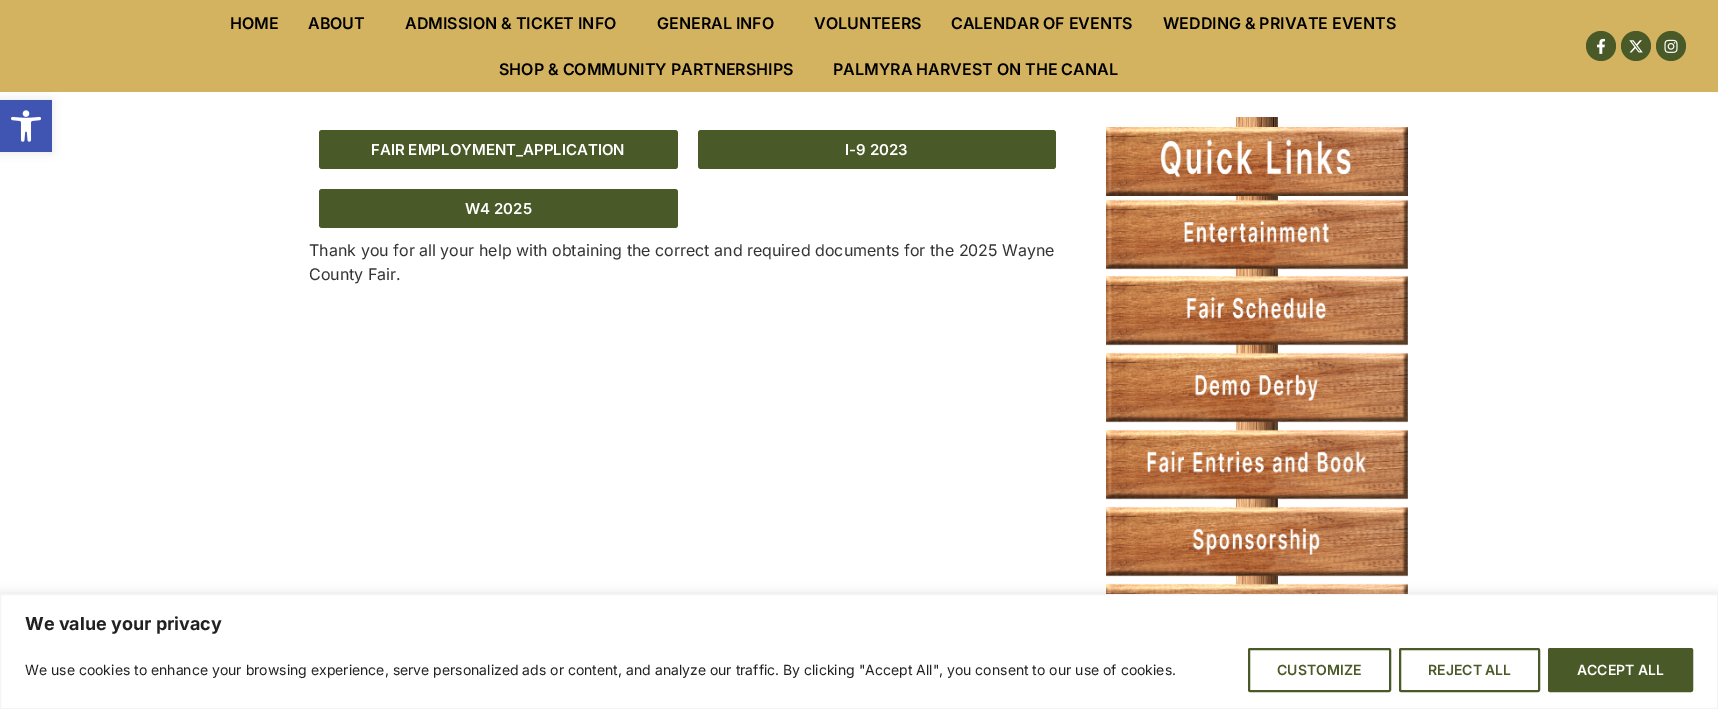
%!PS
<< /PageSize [1718 709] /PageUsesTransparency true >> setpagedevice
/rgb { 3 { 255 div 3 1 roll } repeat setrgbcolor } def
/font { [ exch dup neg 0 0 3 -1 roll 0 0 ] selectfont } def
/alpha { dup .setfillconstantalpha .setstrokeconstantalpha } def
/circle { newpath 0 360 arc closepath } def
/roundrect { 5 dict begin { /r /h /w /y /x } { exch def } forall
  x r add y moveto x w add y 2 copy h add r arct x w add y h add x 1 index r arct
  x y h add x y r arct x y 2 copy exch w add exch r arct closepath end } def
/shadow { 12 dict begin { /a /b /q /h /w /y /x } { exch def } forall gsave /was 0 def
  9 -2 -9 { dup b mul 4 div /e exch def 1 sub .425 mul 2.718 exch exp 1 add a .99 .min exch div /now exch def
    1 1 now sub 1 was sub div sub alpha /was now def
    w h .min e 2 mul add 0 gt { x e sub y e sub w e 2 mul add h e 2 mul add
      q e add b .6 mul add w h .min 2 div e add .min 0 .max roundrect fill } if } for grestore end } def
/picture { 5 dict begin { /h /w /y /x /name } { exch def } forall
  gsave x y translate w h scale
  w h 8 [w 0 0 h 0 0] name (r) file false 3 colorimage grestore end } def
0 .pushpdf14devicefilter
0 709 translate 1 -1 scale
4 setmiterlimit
255 255 255 rgb
0 0 1718 709 rectfill
211 179 96 rgb
0 0 1718 92 rectfill
74 89 40 rgb
1601 46 15 circle fill
(img/1.rgb) 1597 38 8 16 picture
1636 46 15 circle fill
(img/2.rgb) 1629 40 14 13 picture
1671 46 15 circle fill
(img/3.rgb) 1664 39 14 14 picture
0 0 0 rgb
0 100 52 52 0 5 0.1 shadow
64 84 178 rgb
0 100 52 52 rectfill
(img/4.rgb) 11 110 30 32 picture
74 89 40 rgb
319 130 359 39 3 roundrect fill
698 130 358 39 3 roundrect fill
319 189 359 39 3 roundrect fill
(img/5.rgb) 1236 117 42 468 picture
(img/6.rgb) 1106 127 302 69 picture
(img/7.rgb) 1106 199 302 71 picture
(img/8.rgb) 1106 275 302 71 picture
(img/9.rgb) 1106 352 302 71 picture
(img/10.rgb) 1106 429 302 71 picture
(img/11.rgb) 1106 506 302 71 picture
(img/12.rgb) 1106 583 302 11 picture
172 171 171 rgb
0 593 1718 115 0 5 0.3 shadow
255 255 255 rgb
0.5 594.5 moveto 1717.5 594.5 lineto 1717.5 708.5 lineto 0.5 708.5 lineto closepath gsave fill grestore
244 244 244 rgb
stroke
74 89 40 rgb
2 setlinewidth
1249 649 141 42 1 roundrect stroke
1400 649 139 42 1 roundrect stroke
1549 649 143 42 1 roundrect gsave fill grestore
stroke
/Inter-SemiBold 16 font
0 0 0 rgb
[
  [(HOME) 230 29]
  [(ABOUT) 308 29]
  [(ADMISSION & TICKET INFO) 405 29]
  [(GENERAL INFO) 657 29]
  [(VOLUNTEERS) 814 29]
  [(CALENDAR OF EVENTS) 951 29]
  [(WEDDING & PRIVATE EVENTS) 1163 29]
  [(SHOP & COMMUNITY PARTNERSHIPS) 499 75]
  [(PALMYRA HARVEST ON THE CANAL) 833 75]
] { aload pop moveto show } forall
/Inter-SemiBold 15 font
255 255 255 rgb
[
  [(FAIR EMPLOYMENT_APPLICATION) 371 155]
  [(I-9 2023) 845 155]
  [(W4 2025) 465 214]
] { aload pop moveto show } forall
/Inter-Regular 16 font
51 51 51 rgb
309 256 moveto (Thank you for all your help with obtaining the correct and required documents for the 2025 Wayne) show
309 280 moveto (County Fair.) show
/Inter-Bold 18 font
33 33 33 rgb
25 630 moveto (We value your privacy) show
/Inter-Regular 14 font
25 675 moveto (We use cookies to enhance your browsing experience, serve personalized ads or content, and analyze our traffic. By clicking "Accept All", you consent to our use of cookies.) show
/Inter-SemiBold 14 font
74 89 40 rgb
1277 675 moveto (CUSTOMIZE) show
1428 675 moveto (REJECT ALL) show
255 255 255 rgb
1577 675 moveto (ACCEPT ALL) show
.poppdf14devicefilter showpage
